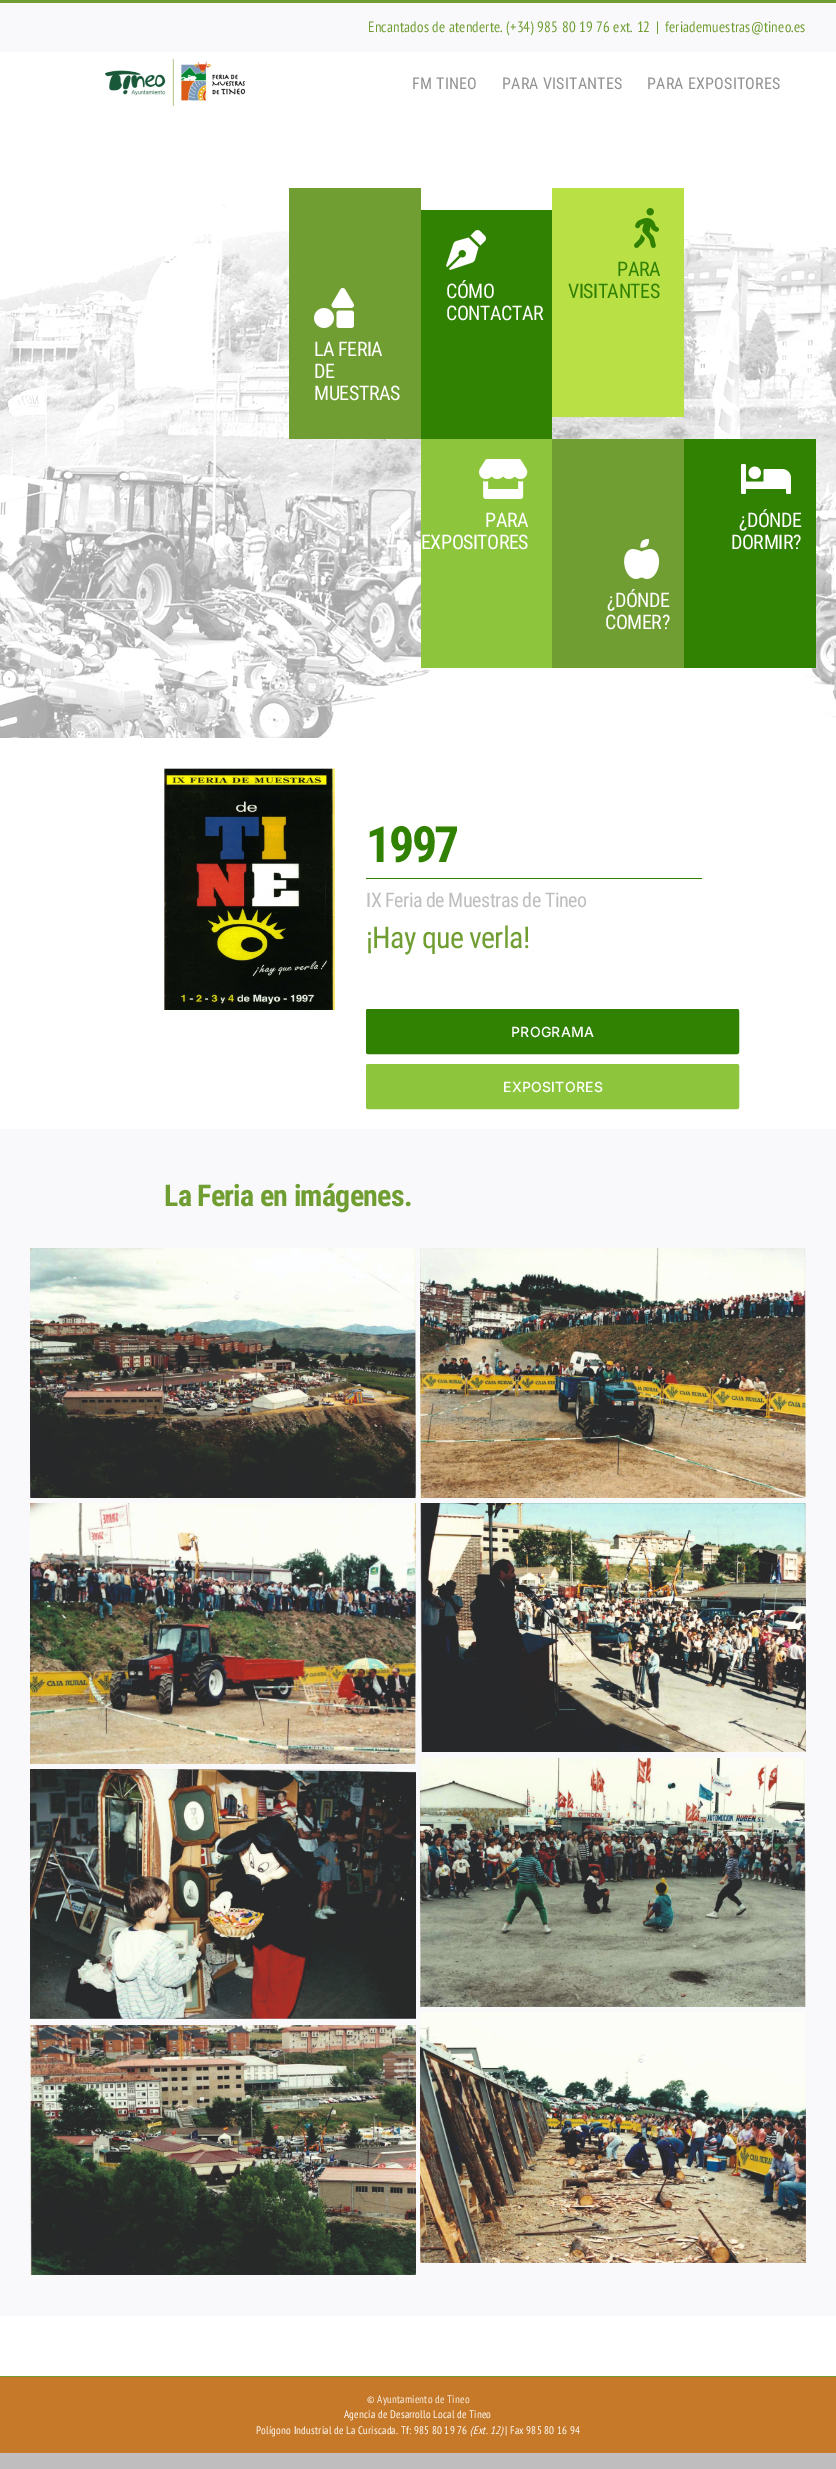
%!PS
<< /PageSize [836 2469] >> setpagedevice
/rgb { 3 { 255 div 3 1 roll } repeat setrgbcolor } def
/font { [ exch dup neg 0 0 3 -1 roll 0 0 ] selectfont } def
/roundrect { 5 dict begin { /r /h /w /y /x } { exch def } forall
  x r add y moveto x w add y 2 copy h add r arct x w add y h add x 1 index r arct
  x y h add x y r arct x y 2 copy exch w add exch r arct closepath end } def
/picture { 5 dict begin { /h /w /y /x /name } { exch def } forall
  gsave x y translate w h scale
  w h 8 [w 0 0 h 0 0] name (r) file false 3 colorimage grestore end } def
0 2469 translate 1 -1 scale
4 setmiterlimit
191 189 189 rgb
0 0 836 2469 rectfill
[
  [0 52 836 2324 255 255 255]
  [0 3 836 49 249 249 251]
  [0 0 836 3 113 158 50]
] { aload pop rgb rectfill } forall
(img/1.rgb) 104 58 142 49 picture
(img/2.rgb) 0 204 836 534 picture
49 130 2 rgb
421 210 131 229 rectfill
(img/3.rgb) 446 230 40 40 picture
185 224 69 rgb
552 188 132 229 rectfill
(img/4.rgb) 634 208 25 40 picture
113 158 50 rgb
289 188 132 251 rectfill
(img/5.rgb) 314 288 40 40 picture
141 198 61 rgb
421 439 131 229 rectfill
(img/6.rgb) 479 459 49 40 picture
49 130 2 rgb
684 439 132 229 rectfill
(img/7.rgb) 741 464 50 30 picture
113 158 50 rgb
552 439 132 229 rectfill
(img/8.rgb) 624 539 36 40 picture
(img/9.rgb) 164 768 171 242 picture
49 130 2 rgb
366 878 336 1 rectfill
366.5 1009.5 372 44 1.5 roundrect gsave fill grestore
stroke
141 198 61 rgb
366.5 1064.5 372 44 1.5 roundrect gsave fill grestore
stroke
249 249 251 rgb
0 1129 836 1187 rectfill
(img/10.rgb) 30 1248 386 250 picture
(img/11.rgb) 420 1248 386 250 picture
(img/12.rgb) 30 1503 386 261 picture
(img/13.rgb) 420 1503 386 249 picture
(img/14.rgb) 30 1769 386 250 picture
(img/15.rgb) 420 1758 386 249 picture
(img/16.rgb) 30 2025 386 250 picture
(img/17.rgb) 420 2012 386 251 picture
198 122 41 rgb
0 2377 836 76 rectfill
113 158 50 rgb
0 2376 836 1 rectfill
/PTSansNarrow-Regular 15 font
368 32 moveto 0.18 0 (Encantados de atenderte. \(+34\) 985 80 19 76 ext. 12) ashow
656 32 moveto 0.18 0 (|) ashow
665 32 moveto 0.18 0 (feriademuestras@tineo.es) ashow
/RobotoCondensed-Regular 16 font
147 146 146 rgb
412 89 moveto 0.25 0 (FM TINEO) ashow
502 89 moveto 0.25 0 (PARA VISITANTES) ashow
647 89 moveto 0.25 0 (PARA EXPOSITORES) ashow
/RobotoCondensed-Regular 20 font
255 255 255 rgb
446 298 moveto -0.5 0 (CÓMO) ashow
446 320 moveto -0.5 0 (CONTACTAR) ashow
49 130 2 rgb
617 276 moveto -0.5 0 (PARA) ashow
568 298 moveto -0.5 0 (VISITANTES) ashow
255 255 255 rgb
314 356 moveto -0.5 0 (LA FERIA) ashow
314 378 moveto -0.5 0 (DE) ashow
314 400 moveto -0.5 0 (MUESTRAS) ashow
485 527 moveto -0.5 0 (PARA) ashow
421 549 moveto -0.5 0 (EXPOSITORES) ashow
739 527 moveto -0.5 0 (¿DÓNDE) ashow
731 549 moveto -0.5 0 (DORMIR?) ashow
607 607 moveto -0.5 0 (¿DÓNDE) ashow
605 629 moveto -0.5 0 (COMER?) ashow
/RobotoCondensed-Bold 50 font
49 130 2 rgb
366 862 moveto -2.5 0 (1997) ashow
/RobotoCondensed-Regular 20 font
191 189 189 rgb
366 907 moveto -0.5 0 (IX Feria de Muestras de Tineo) ashow
/RobotoCondensed-Regular 30 font
113 158 50 rgb
366 948 moveto -0.75 0 (¡Hay que verla!) ashow
/Inter-Medium 14 font
255 255 255 rgb
511 1037 moveto 0.25 0 (PROGRAMA) ashow
503 1092 moveto 0.25 0 (EXPOSITORES) ashow
/RobotoCondensed-Bold 30 font
113 158 50 rgb
164 1206 moveto -0.75 0 (La Feria en imágenes.) ashow
/PTSansNarrow-Regular 11 font
249 242 234 rgb
367 2403 moveto 0.18 0 (© Ayuntamiento de Tineo) ashow
255 255 255 rgb
344 2418 moveto 0.18 0 (Agencia de Desarrollo Local de Tineo) ashow
256 2434 moveto 0.18 0 (Polígono Industrial de La Curiscada. Tf: 985 80 19 76) ashow
/PTSansNarrow-Italic 11 font
470 2434 moveto 0.18 0 (\(Ext. 12\)) ashow
/PTSansNarrow-Regular 11 font
505 2434 moveto 0.18 0 (| Fax 985 80 16 94) ashow
showpage
